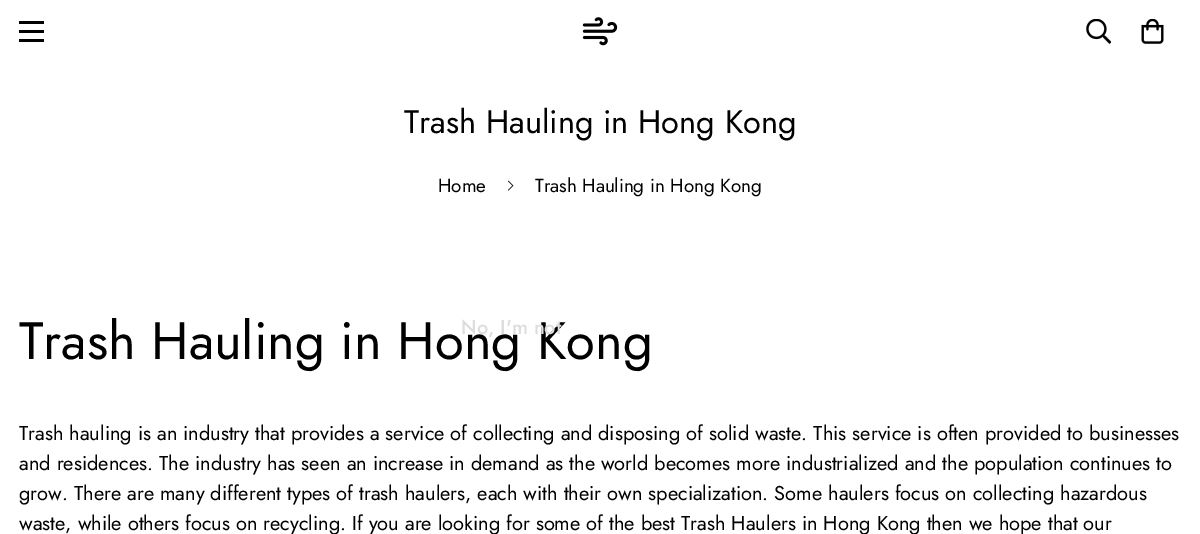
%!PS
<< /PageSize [1200 534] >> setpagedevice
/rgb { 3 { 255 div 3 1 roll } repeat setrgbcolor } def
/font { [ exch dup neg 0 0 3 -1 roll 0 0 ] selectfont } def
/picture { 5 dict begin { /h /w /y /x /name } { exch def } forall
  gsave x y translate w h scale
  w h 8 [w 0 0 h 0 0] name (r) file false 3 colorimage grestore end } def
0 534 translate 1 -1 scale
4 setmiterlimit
255 255 255 rgb
0 0 1200 534 rectfill
[
  [19 30 25 3 0 0 0]
  [19 21 25 3 0 0 0]
  [19 39 25 3 0 0 0]
] { aload pop rgb rectfill } forall
(img/1.rgb) 582 17 36 29 picture
(img/2.rgb) 1086 19 25 25 picture
(img/3.rgb) 1141 19 23 25 picture
(img/4.rgb) 508 180 6 11 picture
/Jost-Regular 32.5 font
404 133 moveto (Trash Hauling in Hong Kong) show
/Jost-Regular 18.75 font
438 192 moveto (Home) show
535 192 moveto (Trash Hauling in Hong Kong) show
/Jost-Regular 52.5 font
19 359 moveto (Trash Hauling in Hong Kong) show
/Jost-Regular 20 font
[
  [(Trash hauling is an industry that provides a service of collecting and disposing of solid waste. This service is often provided to businesses) 19 440]
  [(and residences. The industry has seen an increase in demand as the world becomes more industrialized and the population continues to) 19 470]
  [(grow. There are many different types of trash haulers, each with their own specialization. Some haulers focus on collecting hazardous) 19 500]
  [(waste, while others focus on recycling. If you are looking for some of the best Trash Haulers in Hong Kong then we hope that our) 19 530]
] { aload pop moveto show } forall
/Jost-Medium 20 font
221 221 221 rgb
461 334 moveto (No, I'm not) show
showpage
